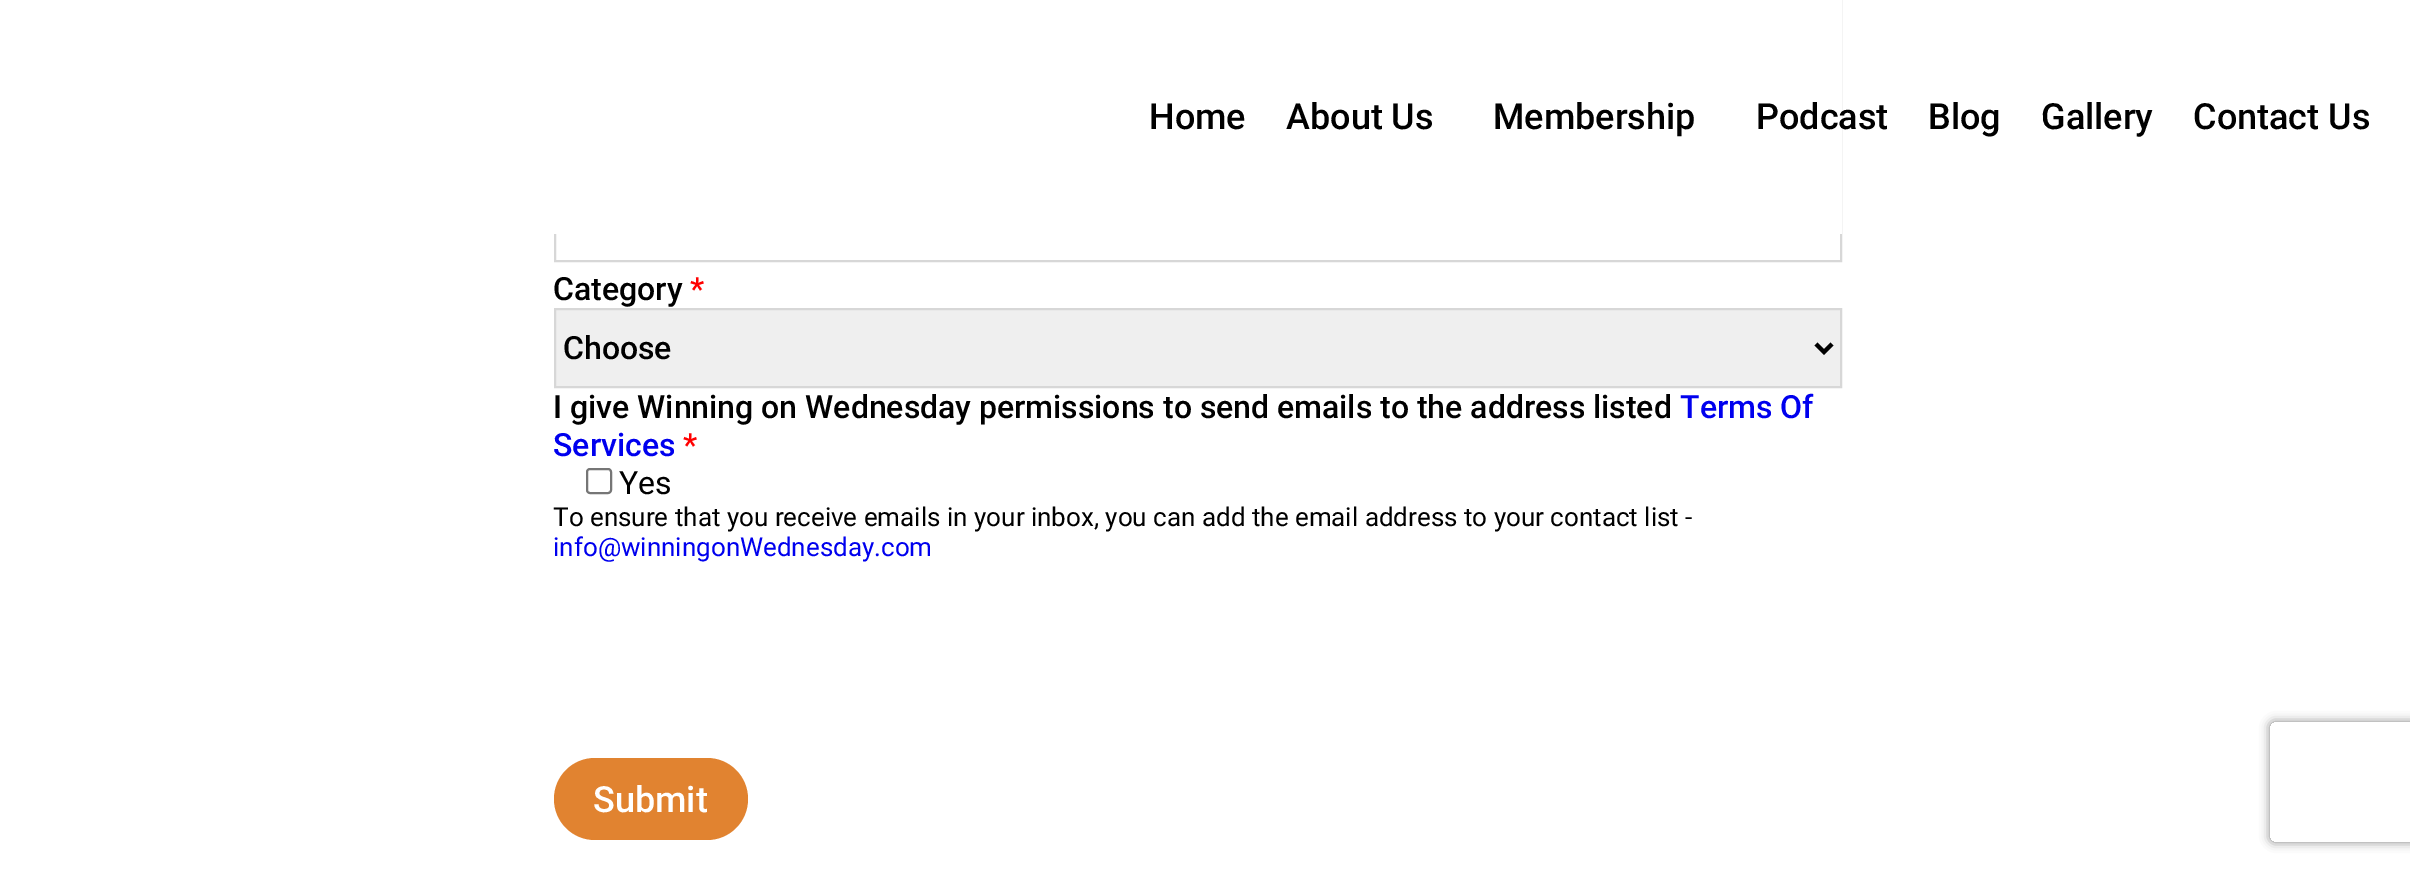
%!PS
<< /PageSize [2410 870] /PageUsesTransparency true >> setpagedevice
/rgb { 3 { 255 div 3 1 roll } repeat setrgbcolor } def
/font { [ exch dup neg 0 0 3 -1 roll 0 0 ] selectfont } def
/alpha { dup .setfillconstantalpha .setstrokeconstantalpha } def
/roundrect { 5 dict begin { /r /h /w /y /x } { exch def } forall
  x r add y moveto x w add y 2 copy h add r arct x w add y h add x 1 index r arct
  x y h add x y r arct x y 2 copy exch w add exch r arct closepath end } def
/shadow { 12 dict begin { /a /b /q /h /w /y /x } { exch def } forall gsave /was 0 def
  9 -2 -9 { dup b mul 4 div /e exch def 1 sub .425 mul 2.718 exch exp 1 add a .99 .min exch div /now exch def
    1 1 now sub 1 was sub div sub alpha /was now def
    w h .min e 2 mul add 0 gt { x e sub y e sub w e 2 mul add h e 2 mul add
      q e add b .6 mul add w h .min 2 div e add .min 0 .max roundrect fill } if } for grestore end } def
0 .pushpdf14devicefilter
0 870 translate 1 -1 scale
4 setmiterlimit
255 255 255 rgb
0 0 2410 870 rectfill
215 215 215 rgb
2 setlinewidth
555 -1 1286 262 rectstroke
255 255 255 rgb
554 0 1288 234 rectfill
239 239 239 rgb
555 309 moveto 1841 309 lineto 1841 387 lineto 555 387 lineto closepath gsave fill grestore
215 215 215 rgb
stroke
0 0 0 rgb
4 setlinewidth
1816 344 moveto 1824 352 lineto 1832 344 lineto stroke
118 118 118 rgb
2 setlinewidth
587 469 24 24 3 roundrect stroke
225 131 48 rgb
554 758 194 82 41 roundrect fill
gsave
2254 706 moveto 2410 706 lineto 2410 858 lineto 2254 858 lineto closepath 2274 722 moveto 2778 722 lineto 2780 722 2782 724 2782 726 curveto 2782 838 lineto 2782 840 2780 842 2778 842 curveto 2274 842 lineto 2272 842 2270 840 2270 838 curveto 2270 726 lineto 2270 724 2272 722 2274 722 curveto closepath eoclip newpath
128 128 128 rgb
2270 722 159 120 4 5 1 shadow
grestore
/Roboto-Medium 36 font
0 0 0 rgb
[
  [(Home) 1149 129]
  [(About Us) 1286 129]
  [(Membership) 1493 129]
  [(Podcast) 1756 129]
  [(Blog) 1928 129]
  [(Gallery) 2041 129]
  [(Contact Us) 2193 129]
] { aload pop moveto show } forall
/Roboto-Medium 32 font
553 300 moveto (Category) show
255 0 0 rgb
690 300 moveto (*) show
0 0 0 rgb
563 359 moveto (Choose) show
553 418 moveto (I give Winning on Wednesday permissions to send emails to the address listed) show
0 0 238 rgb
1680 418 moveto (Terms Of) show
553 456 moveto (Services) show
255 0 0 rgb
683 456 moveto (*) show
/Roboto-Regular 32 font
0 0 0 rgb
619 494 moveto (Yes) show
/Roboto-Regular 26 font
553 526 moveto (To ensure that you receive emails in your inbox, you can add the email address to your contact list -) show
0 0 238 rgb
553 556 moveto (info@winningonWednesday.com) show
/Roboto-Medium 36 font
255 255 255 rgb
593 812 moveto (Submit) show
.poppdf14devicefilter showpage
